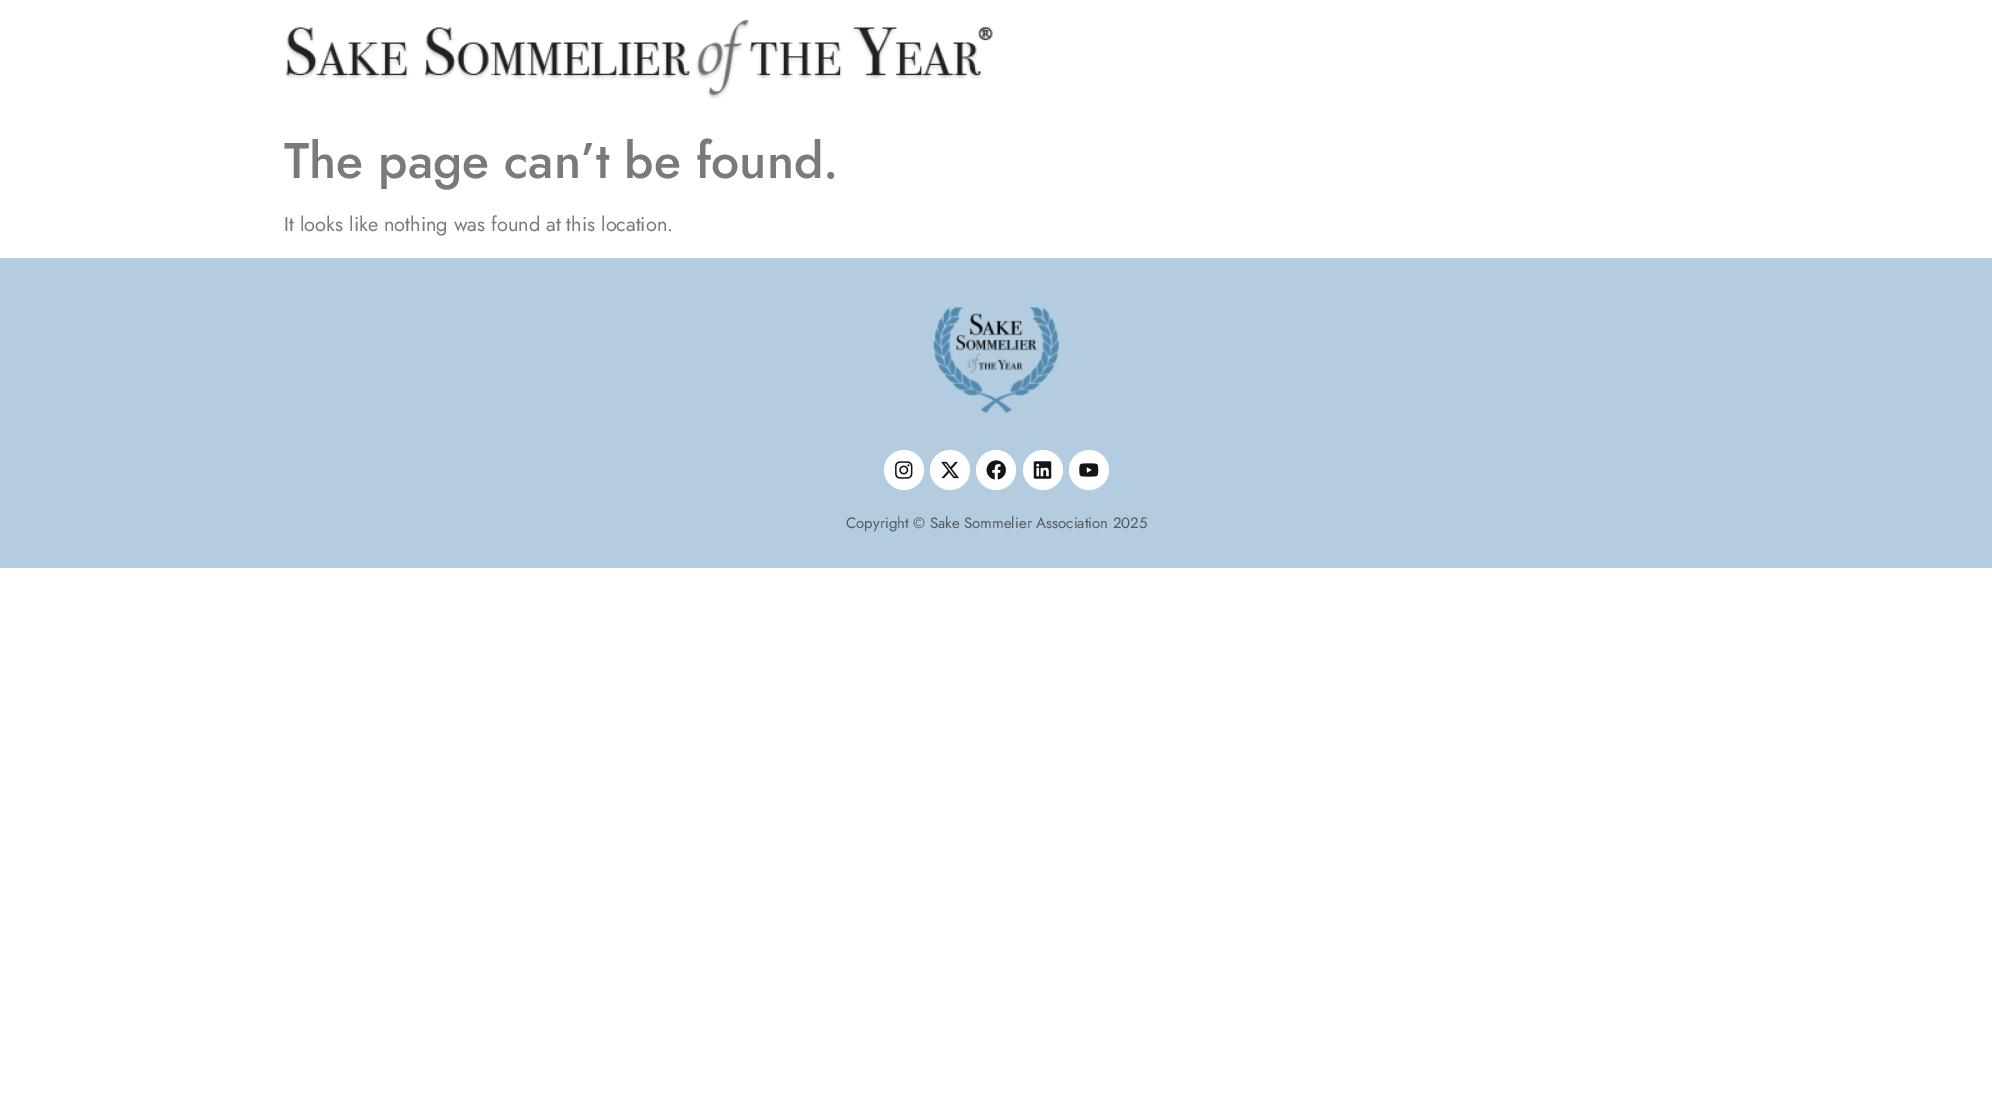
%!PS
<< /PageSize [1992 1107] >> setpagedevice
/rgb { 3 { 255 div 3 1 roll } repeat setrgbcolor } def
/font { [ exch dup neg 0 0 3 -1 roll 0 0 ] selectfont } def
/circle { newpath 0 360 arc closepath } def
/picture { 5 dict begin { /h /w /y /x /name } { exch def } forall
  gsave x y translate w h scale
  w h 8 [w 0 0 h 0 0] name (r) file false 3 colorimage grestore end } def
0 1107 translate 1 -1 scale
4 setmiterlimit
255 255 255 rgb
0 0 1992 1107 rectfill
(img/1.rgb) 285 20 708 79 picture
180 204 223 rgb
0 258 1992 310 rectfill
(img/2.rgb) 933 307 126 106 picture
255 255 255 rgb
904 470 20 circle fill
(img/3.rgb) 895 461 18 18 picture
950 470 20 circle fill
(img/4.rgb) 941 461 18 18 picture
996 470 20 circle fill
(img/5.rgb) 986 460 20 20 picture
1043 470 20 circle fill
(img/6.rgb) 1033 461 19 18 picture
1089 470 20 circle fill
(img/7.rgb) 1079 463 20 14 picture
/Jost-Medium 50 font
122 122 122 rgb
284 178 moveto (The page can’t be found.) show
/Jost-Regular 20 font
284 231 moveto (It looks like nothing was found at this location.) show
/Jost-Regular 15 font
84 89 95 rgb
846 528 moveto (Copyright © Sake Sommelier Association 2025) show
showpage
